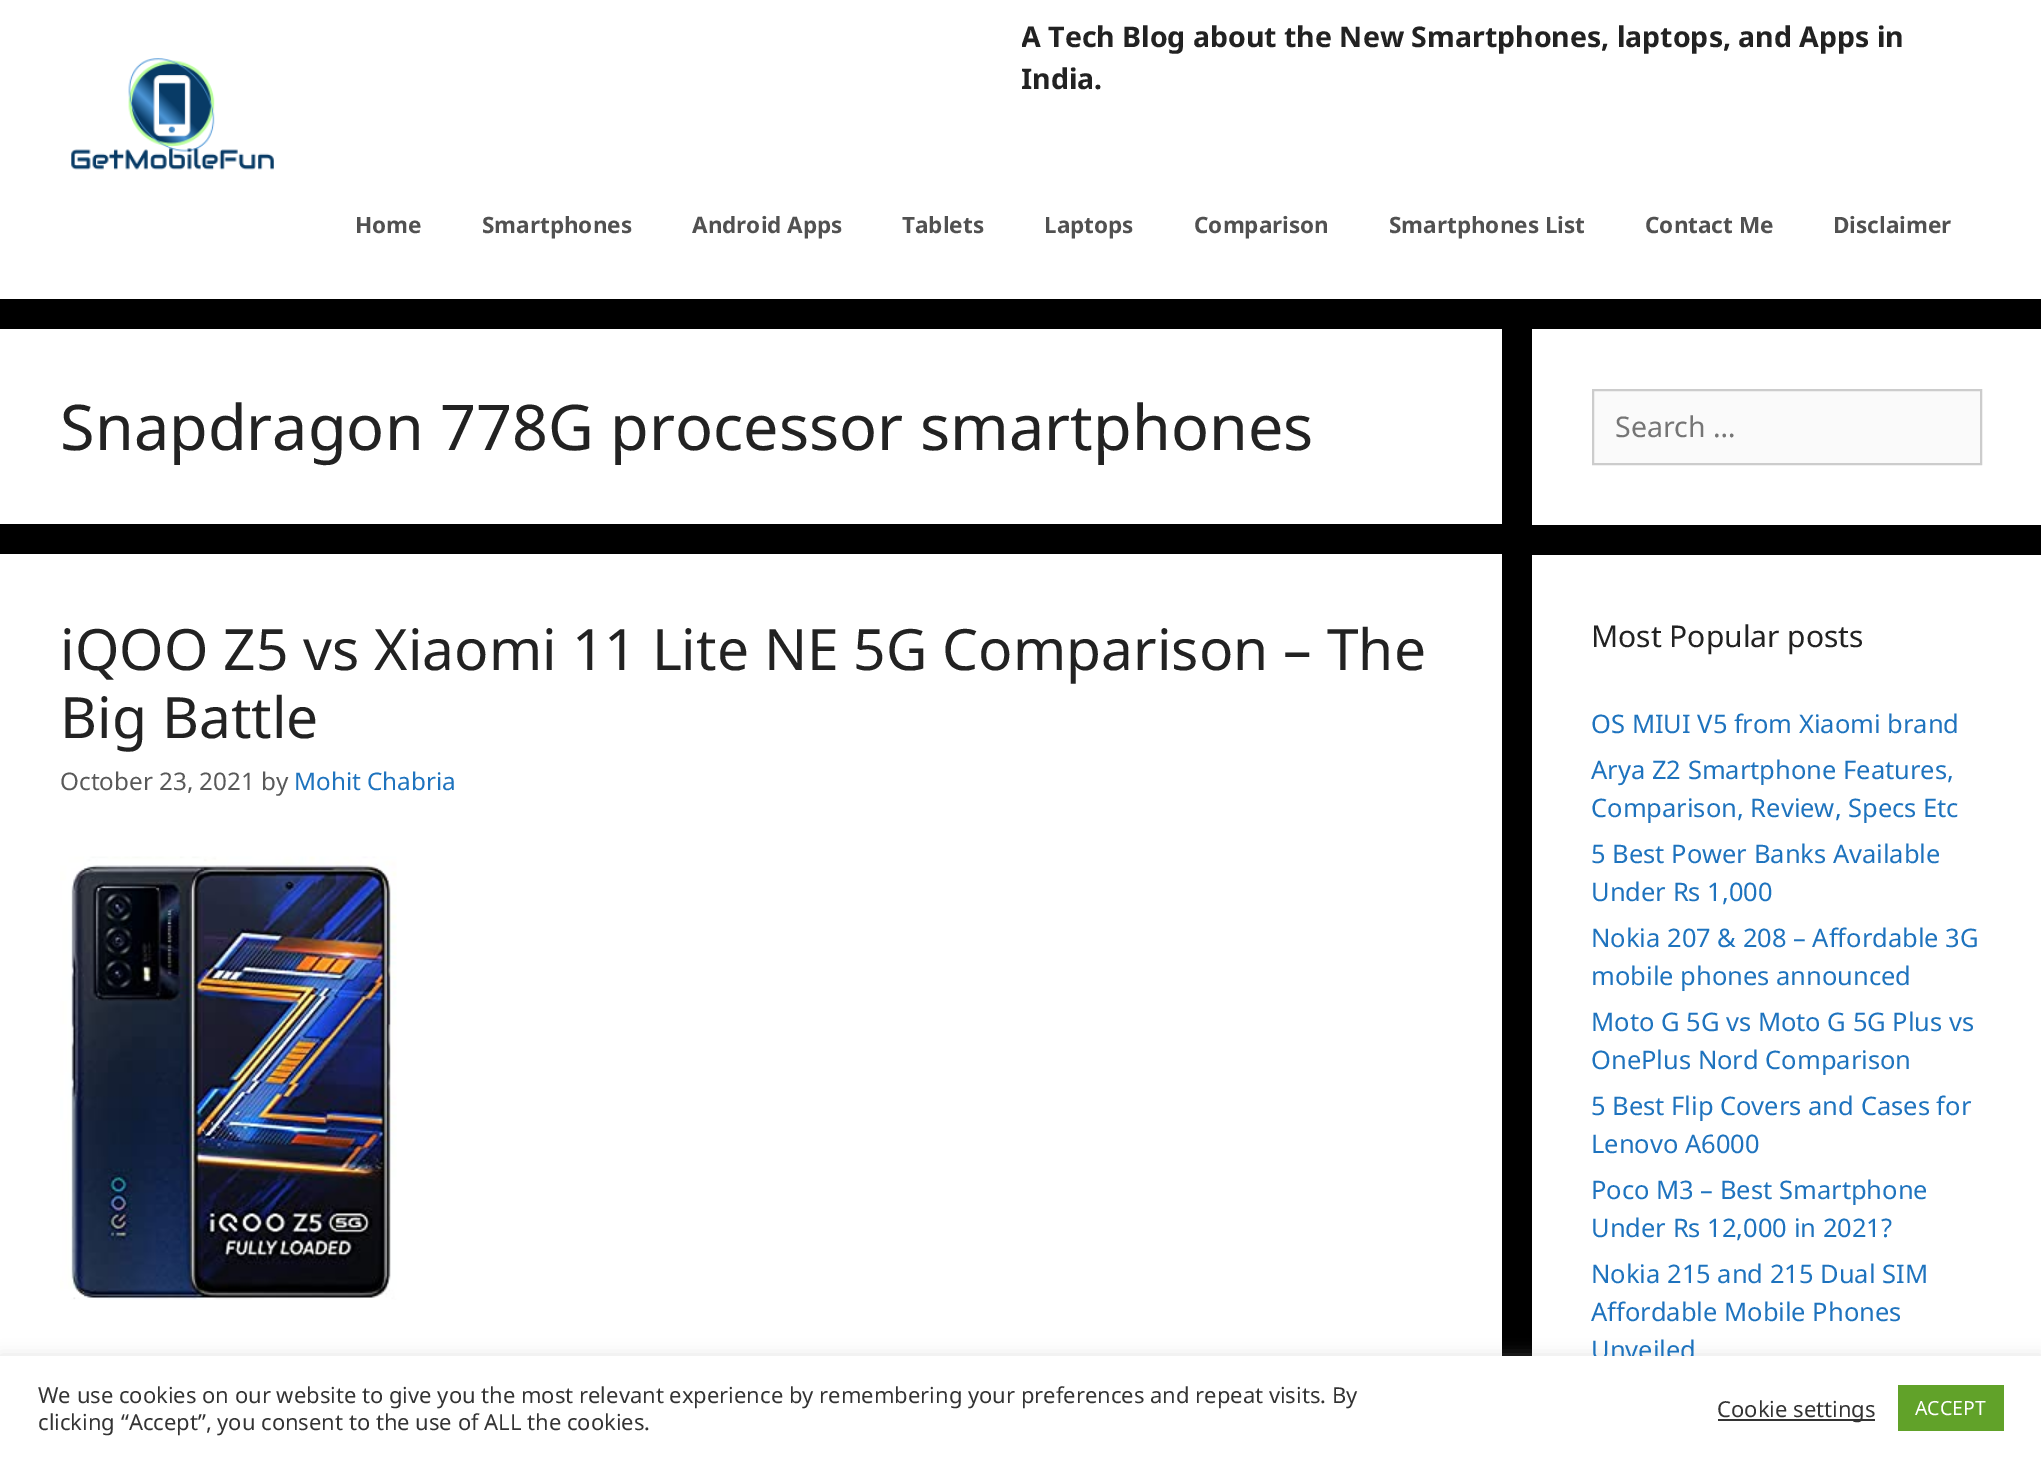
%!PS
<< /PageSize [2041 1459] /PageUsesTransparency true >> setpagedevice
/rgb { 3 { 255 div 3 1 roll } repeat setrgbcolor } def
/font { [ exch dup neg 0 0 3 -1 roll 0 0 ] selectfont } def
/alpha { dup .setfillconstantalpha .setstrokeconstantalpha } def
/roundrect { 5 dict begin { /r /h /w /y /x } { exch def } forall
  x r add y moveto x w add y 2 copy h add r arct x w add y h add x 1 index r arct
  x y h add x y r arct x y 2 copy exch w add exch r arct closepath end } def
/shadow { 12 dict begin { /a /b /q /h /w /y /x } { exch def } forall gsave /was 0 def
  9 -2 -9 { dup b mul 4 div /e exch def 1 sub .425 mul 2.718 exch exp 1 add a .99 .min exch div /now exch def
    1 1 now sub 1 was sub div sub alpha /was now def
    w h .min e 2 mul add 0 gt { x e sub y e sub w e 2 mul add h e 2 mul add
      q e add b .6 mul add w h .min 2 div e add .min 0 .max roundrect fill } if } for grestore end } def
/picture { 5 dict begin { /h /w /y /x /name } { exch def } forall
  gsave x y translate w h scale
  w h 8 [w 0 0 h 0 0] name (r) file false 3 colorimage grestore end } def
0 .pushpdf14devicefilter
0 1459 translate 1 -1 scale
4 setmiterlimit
0 0 0 rgb
0 0 2041 1459 rectfill
255 255 255 rgb
0 0 2041 299 rectfill
(img/1.rgb) 71 58 203 112 picture
0 329 1502 195 rectfill
0 554 1502 802 rectfill
(img/2.rgb) 60 856 337 444 picture
1532 329 509 196 rectfill
250 250 250 rgb
1593 390 moveto 1981 390 lineto 1981 464 lineto 1593 464 lineto closepath gsave fill grestore
204 204 204 rgb
2 setlinewidth
stroke
255 255 255 rgb
1532 555 509 801 rectfill
172 171 171 rgb
0 1355 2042 103 0 7.5 0.3 shadow
gsave
1022 15 960 144 rectclip
/NotoSans-Bold 28.5 font
34 34 34 rgb
1021 47 moveto (A Tech Blog about the New Smartphones, laptops, and Apps in) show
1021 89 moveto (India.) show
grestore
/NotoSans-Bold 22.5 font
81 81 81 rgb
[
  [(Home) 355 233]
  [(Smartphones) 482 233]
  [(Android Apps) 692 233]
  [(Tablets) 902 233]
  [(Laptops) 1044 233]
  [(Comparison) 1194 233]
  [(Smartphones List) 1389 233]
  [(Contact Me) 1645 233]
  [(Disclaimer) 1833 233]
] { aload pop moveto show } forall
/NotoSans-Regular 63 font
34 34 34 rgb
60 450 moveto (Snapdragon 778G processor smartphones) show
/NotoSans-Regular 57 font
60 670 moveto (iQOO Z5 vs Xiaomi 11 Lite NE 5G Comparison – The) show
60 738 moveto (Big Battle) show
/NotoSans-Regular 24.25 font
89 89 89 rgb
60 790 moveto (October 23, 2021 by) show
30 115 190 rgb
294 790 moveto (Mohit Chabria) show
/NotoSans-Regular 28.5 font
117 117 117 rgb
1615 437 moveto (Search …) show
/NotoSans-Regular 30 font
34 34 34 rgb
1591 647 moveto (Most Popular posts) show
/NotoSans-Regular 25.5 font
30 115 190 rgb
[
  [(OS MIUI V5 from Xiaomi brand) 1591 733]
  [(Arya Z2 Smartphone Features,) 1591 779]
  [(Comparison, Review, Specs Etc) 1591 817]
  [(5 Best Power Banks Available) 1591 863]
  [(Under Rs 1,000) 1591 901]
  [(Nokia 207 & 208 – Affordable 3G) 1591 947]
  [(mobile phones announced) 1591 985]
  [(Moto G 5G vs Moto G 5G Plus vs) 1591 1031]
  [(OnePlus Nord Comparison) 1591 1069]
  [(5 Best Flip Covers and Cases for) 1591 1115]
  [(Lenovo A6000) 1591 1153]
  [(Poco M3 – Best Smartphone) 1591 1199]
  [(Under Rs 12,000 in 2021?) 1591 1237]
  [(Nokia 215 and 215 Dual SIM) 1591 1283]
  [(Affordable Mobile Phones) 1591 1321]
  [(Unveiled) 1591 1359]
] { aload pop moveto show } forall
255 255 255 rgb
0 1356 2041 103 rectfill
/NotoSans-Regular 22 font
51 51 51 rgb
38 1403 moveto (We use cookies on our website to give you the most relevant experience by remembering your preferences and repeat visits. By) show
38 1430 moveto (clicking “Accept”, you consent to the use of ALL the cookies.) show
1718 1419 157 2 rectfill
1717 1417 moveto (Cookie settings) show
97 162 41 rgb
1898 1385 106 46 rectfill
/NotoSans-Regular 19.5 font
255 255 255 rgb
1915 1415 moveto (ACCEPT) show
.poppdf14devicefilter showpage
